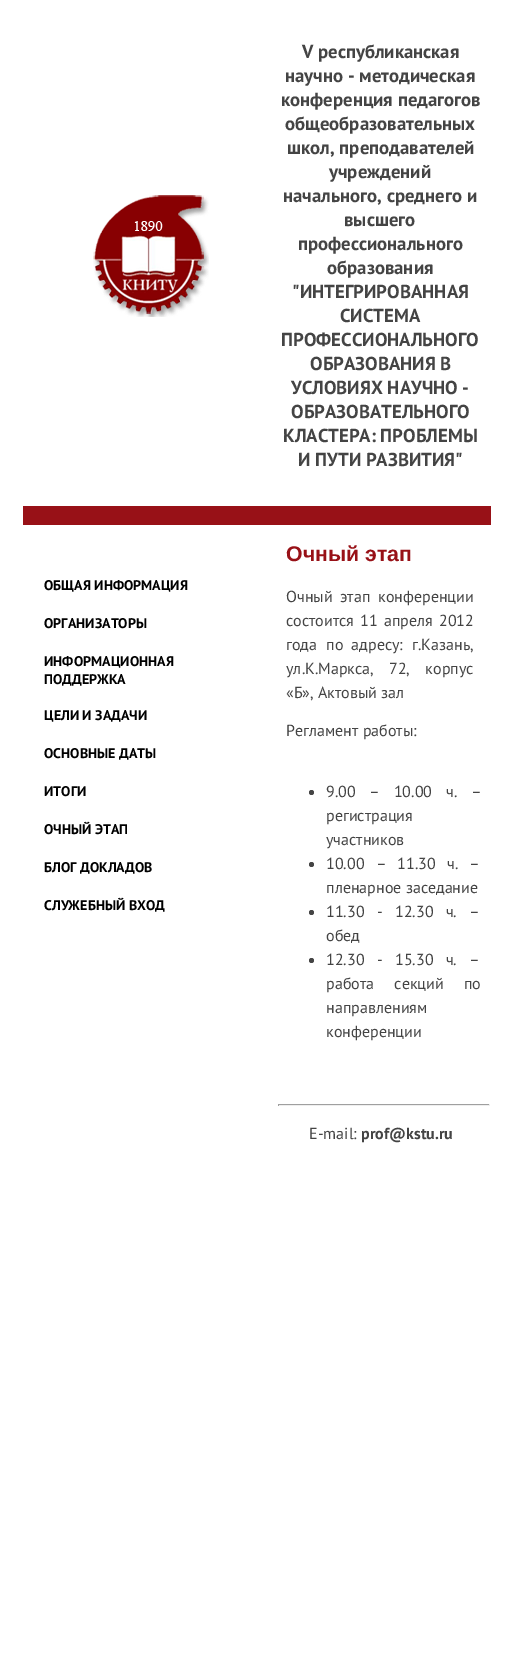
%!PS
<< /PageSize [514 1675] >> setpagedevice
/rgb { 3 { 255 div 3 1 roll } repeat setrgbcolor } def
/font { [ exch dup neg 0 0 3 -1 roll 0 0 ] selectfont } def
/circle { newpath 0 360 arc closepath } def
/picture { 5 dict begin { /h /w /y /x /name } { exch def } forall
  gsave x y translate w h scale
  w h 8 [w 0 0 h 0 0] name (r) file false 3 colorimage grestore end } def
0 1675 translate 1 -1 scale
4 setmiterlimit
255 255 255 rgb
0 0 514 1675 rectfill
(img/1.rgb) 93 195 116 122 picture
152 17 23 rgb
23 506 468 19 rectfill
68 68 68 rgb
311.5 792.5 2.5 circle fill
311.5 864.5 2.5 circle fill
311.5 912.5 2.5 circle fill
311.5 960.5 2.5 circle fill
[
  [278 1104 212 1 159 159 159]
  [489 1104 1 2 238 238 238]
  [278 1105 212 1 238 238 238]
  [278 1104 1 2 159 159 159]
] { aload pop rgb rectfill } forall
/PTSans-Bold 18.75 font
68 68 68 rgb
[
  [(V республиканская) 302 58]
  [(научно - методическая) 285 82]
  [(конференция педагогов) 281 106]
  [(общеобразовательных) 285 130]
  [(школ, преподавателей) 287 154]
  [(учреждений) 329 178]
  [(начального, среднего и) 283 202]
  [(высшего) 344 226]
  [(профессионального) 298 250]
  [(образования) 327 274]
  [("ИНТЕГРИРОВАННАЯ) 292 298]
  [(СИСТЕМА) 340 322]
  [(ПРОФЕССИОНАЛЬНОГО) 281 346]
  [(ОБРАЗОВАНИЯ В) 310 370]
  [(УСЛОВИЯХ НАУЧНО -) 291 394]
  [(ОБРАЗОВАТЕЛЬНОГО) 291 418]
  [(КЛАСТЕРА: ПРОБЛЕМЫ) 283 442]
  [(И ПУТИ РАЗВИТИЯ") 298 466]
] { aload pop moveto show } forall
/PTSans-Bold 14 font
0 0 0 rgb
[
  [(ОБЩАЯ ИНФОРМАЦИЯ) 44 590]
  [(ОРГАНИЗАТОРЫ) 44 628]
  [(ИНФОРМАЦИОННАЯ) 44 666]
  [(ПОДДЕРЖКА) 44 684]
  [(ЦЕЛИ И ЗАДАЧИ) 44 720]
  [(ОСНОВНЫЕ ДАТЫ) 44 758]
  [(ИТОГИ) 44 796]
  [(ОЧНЫЙ ЭТАП) 44 834]
  [(БЛОГ ДОКЛАДОВ) 44 872]
  [(СЛУЖЕБНЫЙ ВХОД) 44 910]
] { aload pop moveto show } forall
/LiberationSans-Bold 21.25 font
152 17 23 rgb
286 561 moveto (Очный этап) show
/PTSans-Regular 16 font
68 68 68 rgb
286 602 moveto 3 0 32 (Очный этап) widthshow
378 602 moveto (конференции) show
286 626 moveto 2 0 32 (состоится 11 апреля 2012) widthshow
286 650 moveto (года) show
326 650 moveto 4 0 32 (по адресу:) widthshow
412 650 moveto (г.Казань,) show
286 674 moveto 11 0 32 (ул.К.Маркса, 72, корпус) widthshow
286 698 moveto («Б», Актовый зал) show
286 736 moveto (Регламент работы:) show
326 797 moveto 9.5 0 32 (9.00 – 10.00 ч. –) widthshow
326 821 moveto (регистрация) show
326 845 moveto (участников) show
326 869 moveto 7 0 32 (10.00 – 11.30 ч. –) widthshow
326 893 moveto (пленарное заседание) show
326 917 moveto 8 0 32 (11.30 -) widthshow
395 917 moveto 8 0 32 (12.30 ч. –) widthshow
326 941 moveto (обед) show
326 965 moveto 8 0 32 (12.30 -) widthshow
395 965 moveto 8 0 32 (15.30 ч. –) widthshow
326 989 moveto 16 0 32 (работа секций по) widthshow
[
  [(направлениям) 326 1013]
  [(конференции) 326 1037]
  [(E-mail:) 309 1139]
] { aload pop moveto show } forall
/PTSans-Bold 16 font
361 1139 moveto (prof@kstu.ru) show
showpage
